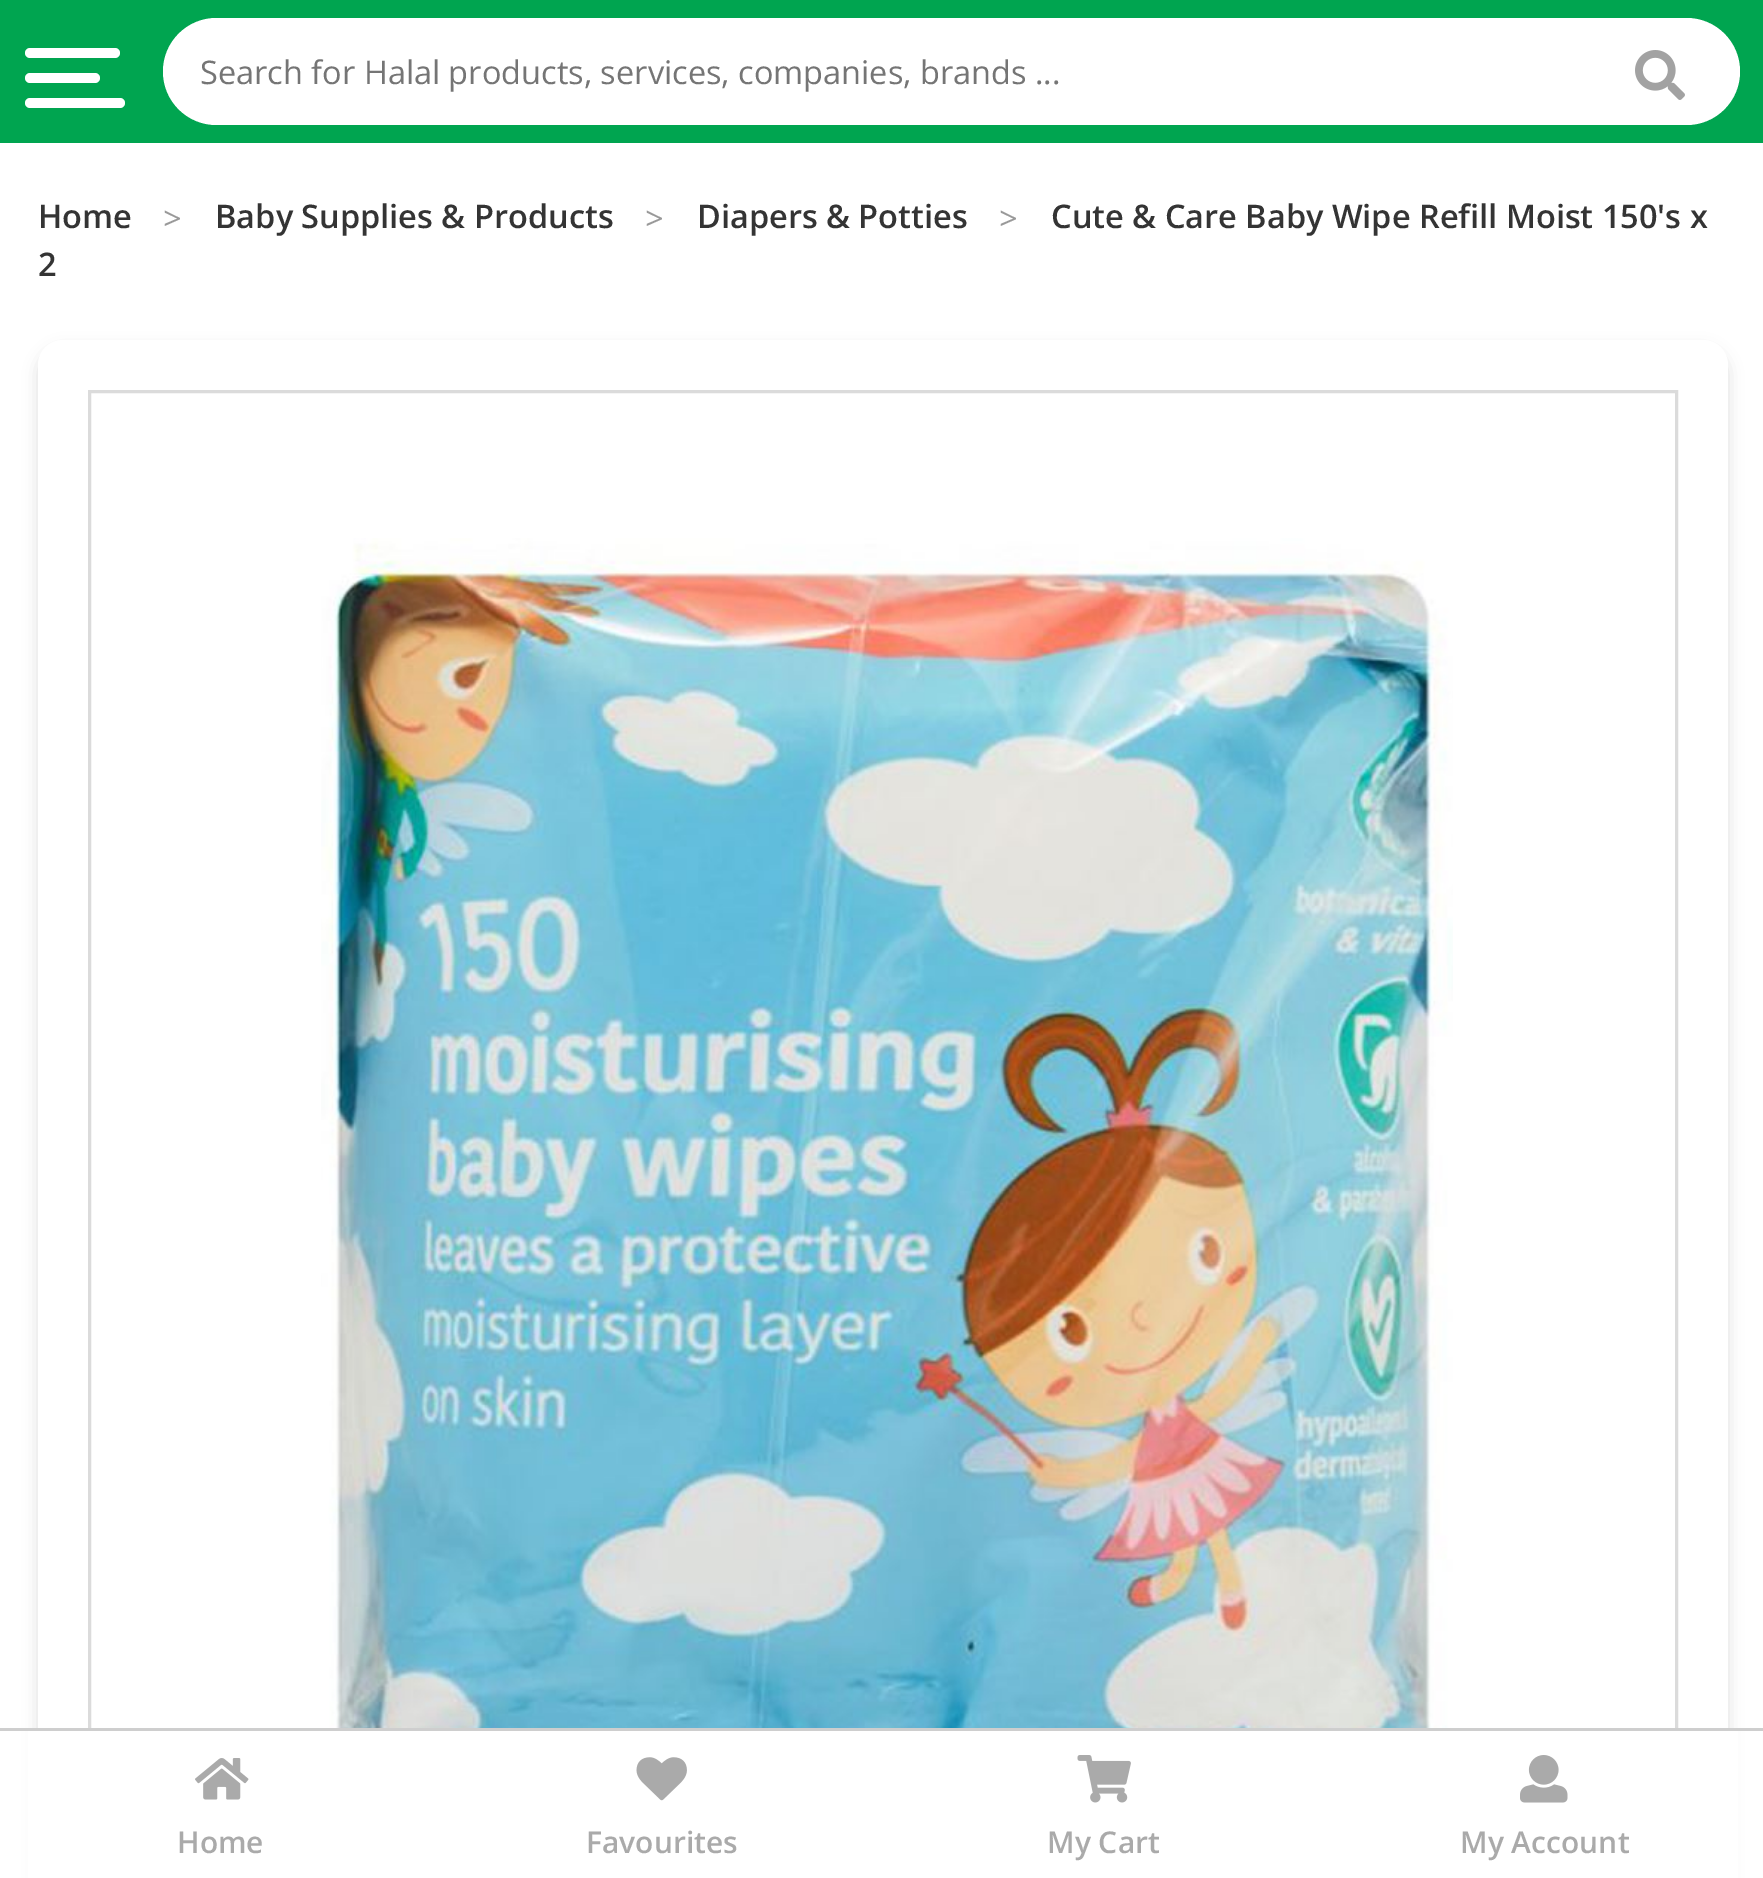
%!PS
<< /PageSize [1763 1878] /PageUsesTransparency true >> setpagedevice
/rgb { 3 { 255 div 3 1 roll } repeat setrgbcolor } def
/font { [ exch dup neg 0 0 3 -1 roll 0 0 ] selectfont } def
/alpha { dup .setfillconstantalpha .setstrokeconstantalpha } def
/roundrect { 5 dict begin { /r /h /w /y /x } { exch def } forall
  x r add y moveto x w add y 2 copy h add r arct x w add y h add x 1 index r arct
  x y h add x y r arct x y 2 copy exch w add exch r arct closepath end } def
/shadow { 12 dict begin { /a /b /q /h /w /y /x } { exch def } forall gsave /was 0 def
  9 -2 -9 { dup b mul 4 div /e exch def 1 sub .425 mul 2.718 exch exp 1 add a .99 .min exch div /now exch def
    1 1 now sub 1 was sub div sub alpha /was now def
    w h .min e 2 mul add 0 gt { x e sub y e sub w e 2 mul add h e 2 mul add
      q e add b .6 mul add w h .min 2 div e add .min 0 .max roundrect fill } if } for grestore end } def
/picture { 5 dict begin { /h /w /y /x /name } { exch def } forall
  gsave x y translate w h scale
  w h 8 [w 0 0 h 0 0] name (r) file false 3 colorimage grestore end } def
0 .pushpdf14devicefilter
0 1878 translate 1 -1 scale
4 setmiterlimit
255 255 255 rgb
0 0 1763 1878 rectfill
0 165 80 rgb
0 0 1763 143 rectfill
255 255 255 rgb
25 73 75 10 5 roundrect fill
25 48 95 10 5 roundrect fill
25 98 100 10 5 roundrect fill
163 18 1577 107 53.5 roundrect fill
(img/1.rgb) 1635 50 50 50 picture
0 0 0 rgb
38 348 1690 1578 25 7.5 0.12 shadow
255 255 255 rgb
38 340 1690 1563 25 roundrect fill
219 219 219 rgb
3 setlinewidth
89.5 391.5 1587 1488 rectstroke
(img/2.rgb) 321 538 1132 1190 picture
255 255 255 rgb
28 1731 1710 147 rectfill
206 206 206 rgb
0 1728 1763 3 rectfill
(img/3.rgb) 195 1758 54 42 picture
(img/4.rgb) 636 1757 51 44 picture
(img/5.rgb) 1077 1755 54 48 picture
(img/6.rgb) 1520 1755 48 48 picture
/OpenSans-Regular 32.5 font
117 117 117 rgb
200 84 moveto (Search for Halal products, services, companies, brands ...) show
/OpenSans-SemiBold 32.5 font
52 52 52 rgb
38 228 moveto (Home) show
/OpenSans-Regular 32.5 font
153 153 153 rgb
163 230 moveto (>) show
/OpenSans-SemiBold 32.5 font
52 52 52 rgb
215 228 moveto (Baby Supplies & Products) show
/OpenSans-Regular 32.5 font
153 153 153 rgb
645 230 moveto (>) show
/OpenSans-SemiBold 32.5 font
52 52 52 rgb
697 228 moveto (Diapers & Potties) show
/OpenSans-Regular 32.5 font
153 153 153 rgb
999 230 moveto (>) show
/OpenSans-SemiBold 32.5 font
52 52 52 rgb
1051 228 moveto (Cute & Care Baby Wipe Refill Moist 150's x) show
38 276 moveto (2) show
/OpenSans-SemiBold 30 font
170 170 170 rgb
[
  [(Home) 177 1853]
  [(Favourites) 586 1853]
  [(My Cart) 1047 1853]
  [(My Account) 1460 1853]
] { aload pop moveto show } forall
.poppdf14devicefilter showpage
